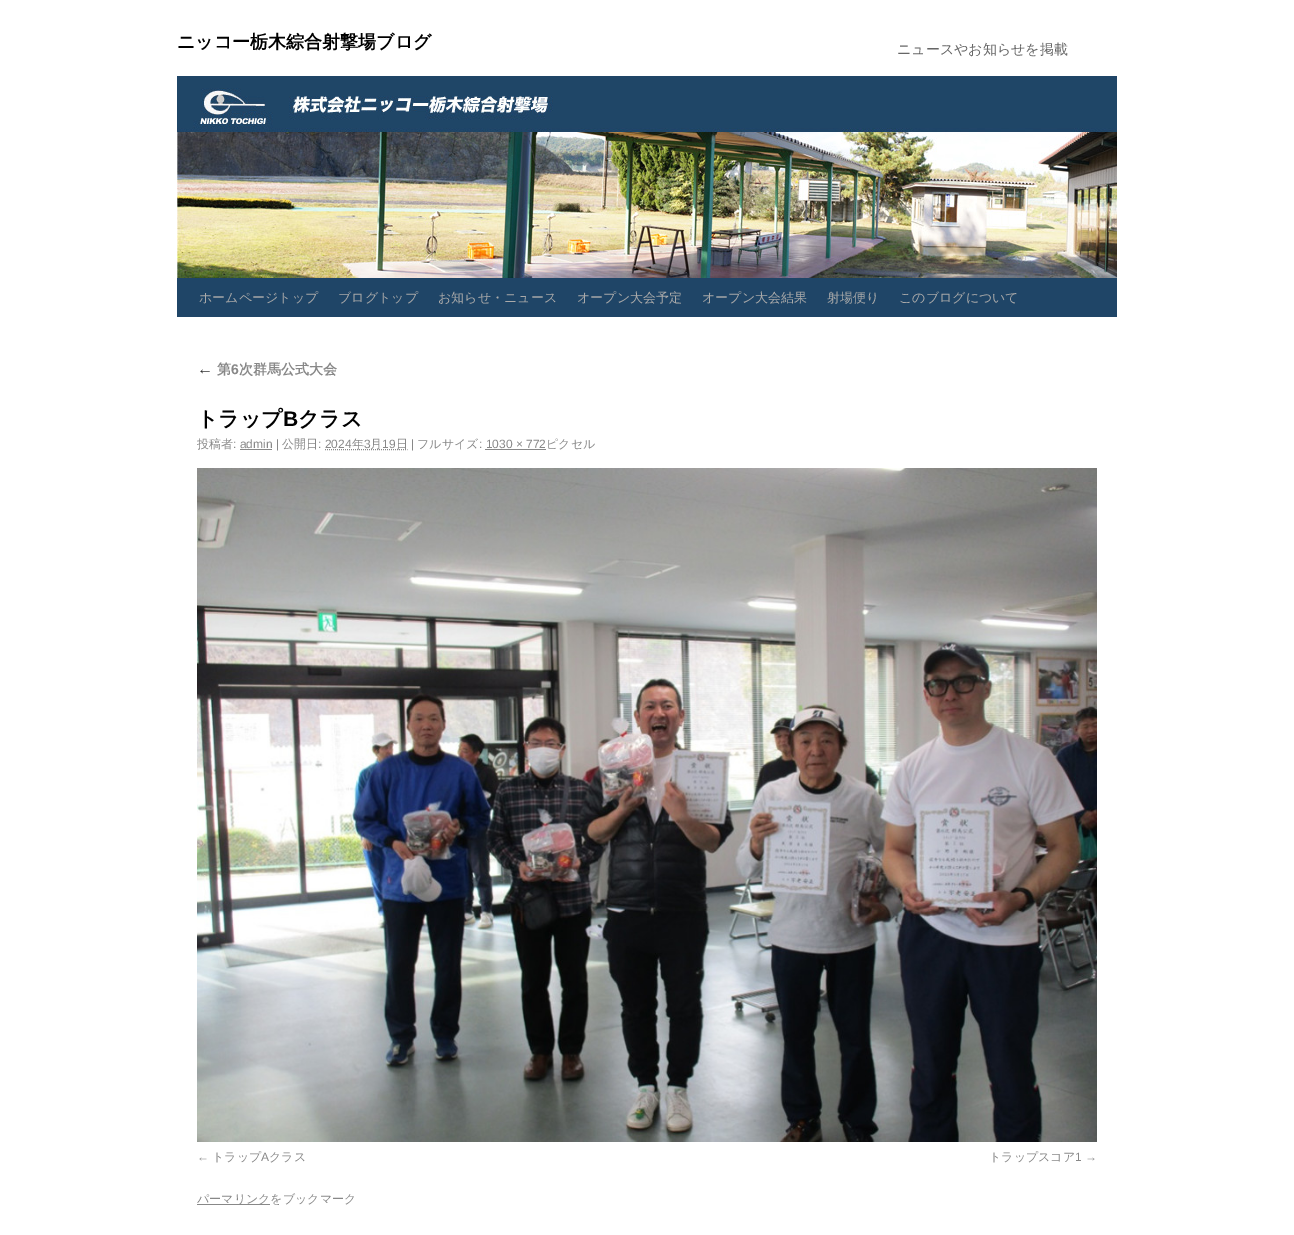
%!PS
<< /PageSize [1294 1235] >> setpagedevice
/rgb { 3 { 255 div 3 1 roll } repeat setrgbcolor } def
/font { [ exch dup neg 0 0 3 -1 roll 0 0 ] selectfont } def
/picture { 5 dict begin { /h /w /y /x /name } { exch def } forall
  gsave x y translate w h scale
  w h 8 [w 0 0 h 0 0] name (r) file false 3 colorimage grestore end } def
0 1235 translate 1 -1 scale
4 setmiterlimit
255 255 255 rgb
0 0 1294 1235 rectfill
31 69 103 rgb
177 76 940 4 rectfill
177 278 940 39 rectfill
(img/1.rgb) 177 80 940 198 picture
136 136 136 rgb
[1 1] 0 setdash
325 449.5 moveto 407.5 449.5 lineto stroke
240 449 32 1 rectfill
485 449 61 1 rectfill
(img/2.rgb) 197 468 900 674 picture
197 1204 73 1 rectfill
/WenQuanYiZenHei-Bold 18 font
0 0 0 rgb
177 48 moveto (ニッコー栃木綜合射撃場ブログ) show
/WenQuanYiZenHei-Medium 14 font
102 102 102 rgb
897 54 moveto (ニュースやお知らせを掲載) show
/WenQuanYiZenHei-Medium 13 font
170 170 170 rgb
[
  [(ホームページトップ) 199 302]
  [(ブログトップ) 338 302]
  [(お知らせ・ニュース) 438 302]
  [(オープン大会予定) 577 302]
  [(オープン大会結果) 702 302]
  [(射場便り) 827 302]
  [(このブログについて) 899 302]
] { aload pop moveto show } forall
/LiberationSerif-Italic 16 font
51 51 51 rgb
197 374 moveto (←) show
/WenQuanYiZenHei-Bold 14 font
136 136 136 rgb
217 374 moveto (第) show
/LiberationSans-Bold 14 font
231 374 moveto (6) show
/WenQuanYiZenHei-Bold 14 font
239 374 moveto (次群馬公式大会) show
/WenQuanYiZenHei-Bold 21 font
0 0 0 rgb
197 426 moveto (トラップ) show
/LiberationSans-Bold 21 font
283 426 moveto (B) show
/WenQuanYiZenHei-Bold 21 font
298 426 moveto (クラス) show
/WenQuanYiZenHei-Medium 12 font
136 136 136 rgb
197 448 moveto (投稿者) show
/LiberationSans-Regular 12 font
233 448 moveto (: admin |) show
/WenQuanYiZenHei-Medium 12 font
282 448 moveto (公開日) show
/LiberationSans-Regular 12 font
318 448 moveto (: 2024) show
/WenQuanYiZenHei-Medium 12 font
352 448 moveto (年) show
/LiberationSans-Regular 12 font
364 448 moveto (3) show
/WenQuanYiZenHei-Medium 12 font
370 448 moveto (月) show
/LiberationSans-Regular 12 font
382 448 moveto (19) show
/WenQuanYiZenHei-Medium 12 font
396 448 moveto (日) show
/LiberationSans-Regular 12 font
411 448 moveto (|) show
/WenQuanYiZenHei-Medium 12 font
417 448 moveto (フルサイズ) show
/LiberationSans-Regular 12 font
479 448 moveto (: 1030 × 772) show
/WenQuanYiZenHei-Medium 12 font
546 448 moveto (ピクセル) show
/LiberationSans-Regular 12 font
197 1161 moveto (←) show
/WenQuanYiZenHei-Medium 12 font
212 1161 moveto (トラップ) show
/LiberationSans-Regular 12 font
261 1161 moveto (A) show
/WenQuanYiZenHei-Medium 12 font
269 1161 moveto (クラス) show
989 1161 moveto (トラップスコア) show
/LiberationSans-Regular 12 font
1075 1161 moveto (1 →) show
/WenQuanYiZenHei-Medium 12 font
197 1203 moveto (パーマリンクをブックマーク) show
showpage
